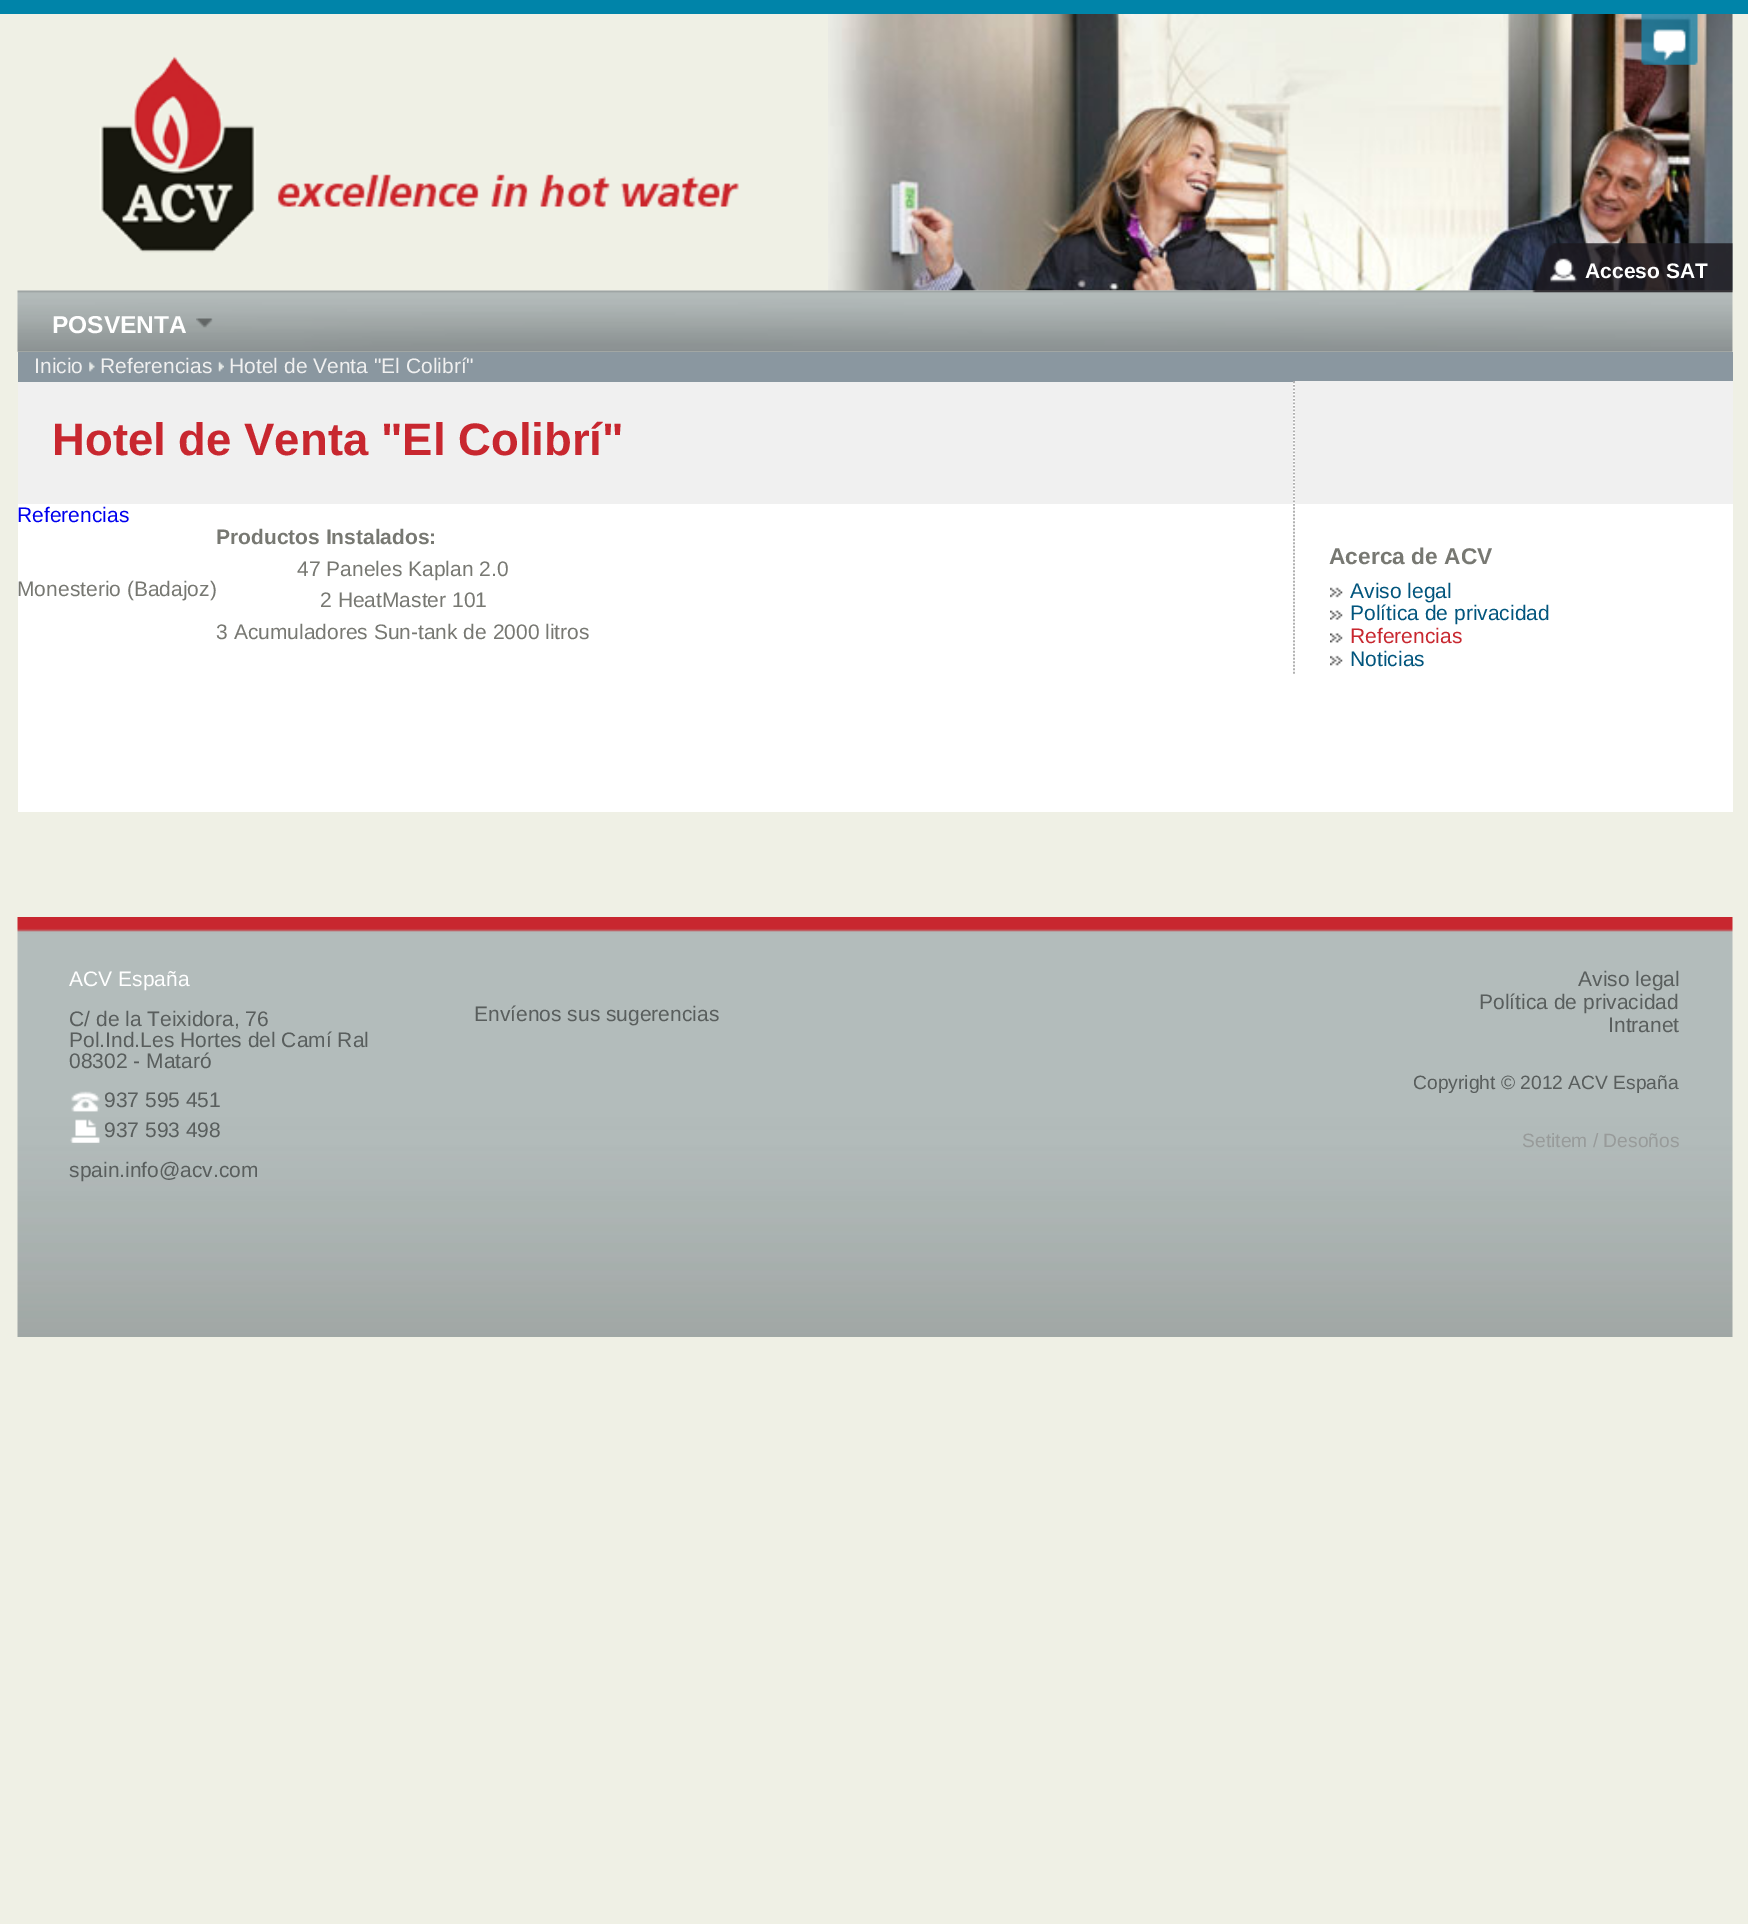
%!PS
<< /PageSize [1748 1924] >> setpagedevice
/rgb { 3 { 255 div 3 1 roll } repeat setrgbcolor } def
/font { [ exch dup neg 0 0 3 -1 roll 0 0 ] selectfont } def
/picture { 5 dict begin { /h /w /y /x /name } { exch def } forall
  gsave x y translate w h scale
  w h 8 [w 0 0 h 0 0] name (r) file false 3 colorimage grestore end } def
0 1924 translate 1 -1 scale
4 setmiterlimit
239 240 229 rgb
0 0 1748 1924 rectfill
0 132 169 rgb
0 0 1748 14 rectfill
(img/1.rgb) 828 14 905 277 picture
(img/2.rgb) 1641 14 57 51 picture
(img/3.rgb) 99 56 640 197 picture
(img/5.rgb) 17 290 1716 62 picture
(img/4.rgb) 1532 243 201 50 picture
(img/6.rgb) 196 318 17 10 picture
138 151 160 rgb
18 352 1715 30 rectfill
(img/7.rgb) 89 361 6 11 picture
(img/8.rgb) 218 361 6 11 picture
255 255 255 rgb
18 504 1715 308 rectfill
177 177 177 rgb
1.8 setlinewidth
[1.75 1.75] 0 setdash
1294 381.5 moveto 1294 675.5 lineto stroke
255 255 255 rgb
1293 382 2 292 rectfill
177 177 177 rgb
1294 381.5 moveto 1294 504 lineto stroke
240 240 240 rgb
18 382 1275 122 rectfill
177 177 177 rgb
1294 504 moveto 1294 675.5 lineto stroke
240 240 240 rgb
1295 381 438 123 rectfill
(img/9.rgb) 1330 587 13 11 picture
(img/10.rgb) 1330 610 13 10 picture
(img/11.rgb) 1330 633 13 10 picture
(img/12.rgb) 1330 655 13 11 picture
(img/13.rgb) 17 917 1716 420 picture
(img/14.rgb) 71 1091 29 21 picture
(img/15.rgb) 70 1119 30 24 picture
/LiberationSans-Bold 21 font
255 255 255 rgb
1585 278 moveto (Acceso SAT) show
/LiberationSans-Bold 24.5 font
52 333 moveto (POSVENTA) show
/LiberationSans-Regular 21 font
240 240 240 rgb
[
  [(Inicio) 34 373]
  [(Referencias) 100 373]
  [(Hotel de Venta "El Colibrí") 229 373]
] { aload pop moveto show } forall
/LiberationSans-Bold 45.5 font
200 39 47 rgb
52 455 moveto (Hotel de Venta "El Colibrí") show
/LiberationSans-Regular 21 font
0 0 238 rgb
17 522 moveto (Referencias) show
119 120 114 rgb
17 596 moveto (Monesterio \(Badajoz\)) show
/LiberationSans-Bold 21 font
216 544 moveto (Productos Instalados:) show
/LiberationSans-Regular 21 font
[
  [(47 Paneles Kaplan 2.0) 297 576]
  [(2 HeatMaster 101) 320 607]
  [(3 Acumuladores Sun-tank de 2000 litros) 216 639]
] { aload pop moveto show } forall
/LiberationSans-Bold 22.75 font
1329 564 moveto (Acerca de ACV) show
/LiberationSans-Regular 21 font
1 85 125 rgb
1350 598 moveto (Aviso legal) show
1350 620 moveto (Política de privacidad) show
200 39 47 rgb
1350 643 moveto (Referencias) show
1 85 125 rgb
1350 666 moveto (Noticias) show
255 255 255 rgb
69 986 moveto (ACV España) show
89 94 93 rgb
[
  [(C/ de la Teixidora, 76) 69 1026]
  [(Pol.Ind.Les Hortes del Camí Ral) 69 1047]
  [(08302 - Mataró) 69 1068]
  [(937 595 451) 104 1107]
  [(937 593 498) 104 1137]
  [(spain.info@acv.com) 69 1177]
  [(Envíenos sus sugerencias) 474 1021]
  [(Aviso legal) 1578 986]
  [(Política de privacidad) 1479 1009]
  [(Intranet) 1608 1032]
] { aload pop moveto show } forall
/LiberationSans-Regular 19.25 font
1413 1089 moveto (Copyright © 2012 ACV España) show
152 155 154 rgb
1522 1147 moveto (Setitem / Desoños) show
showpage
